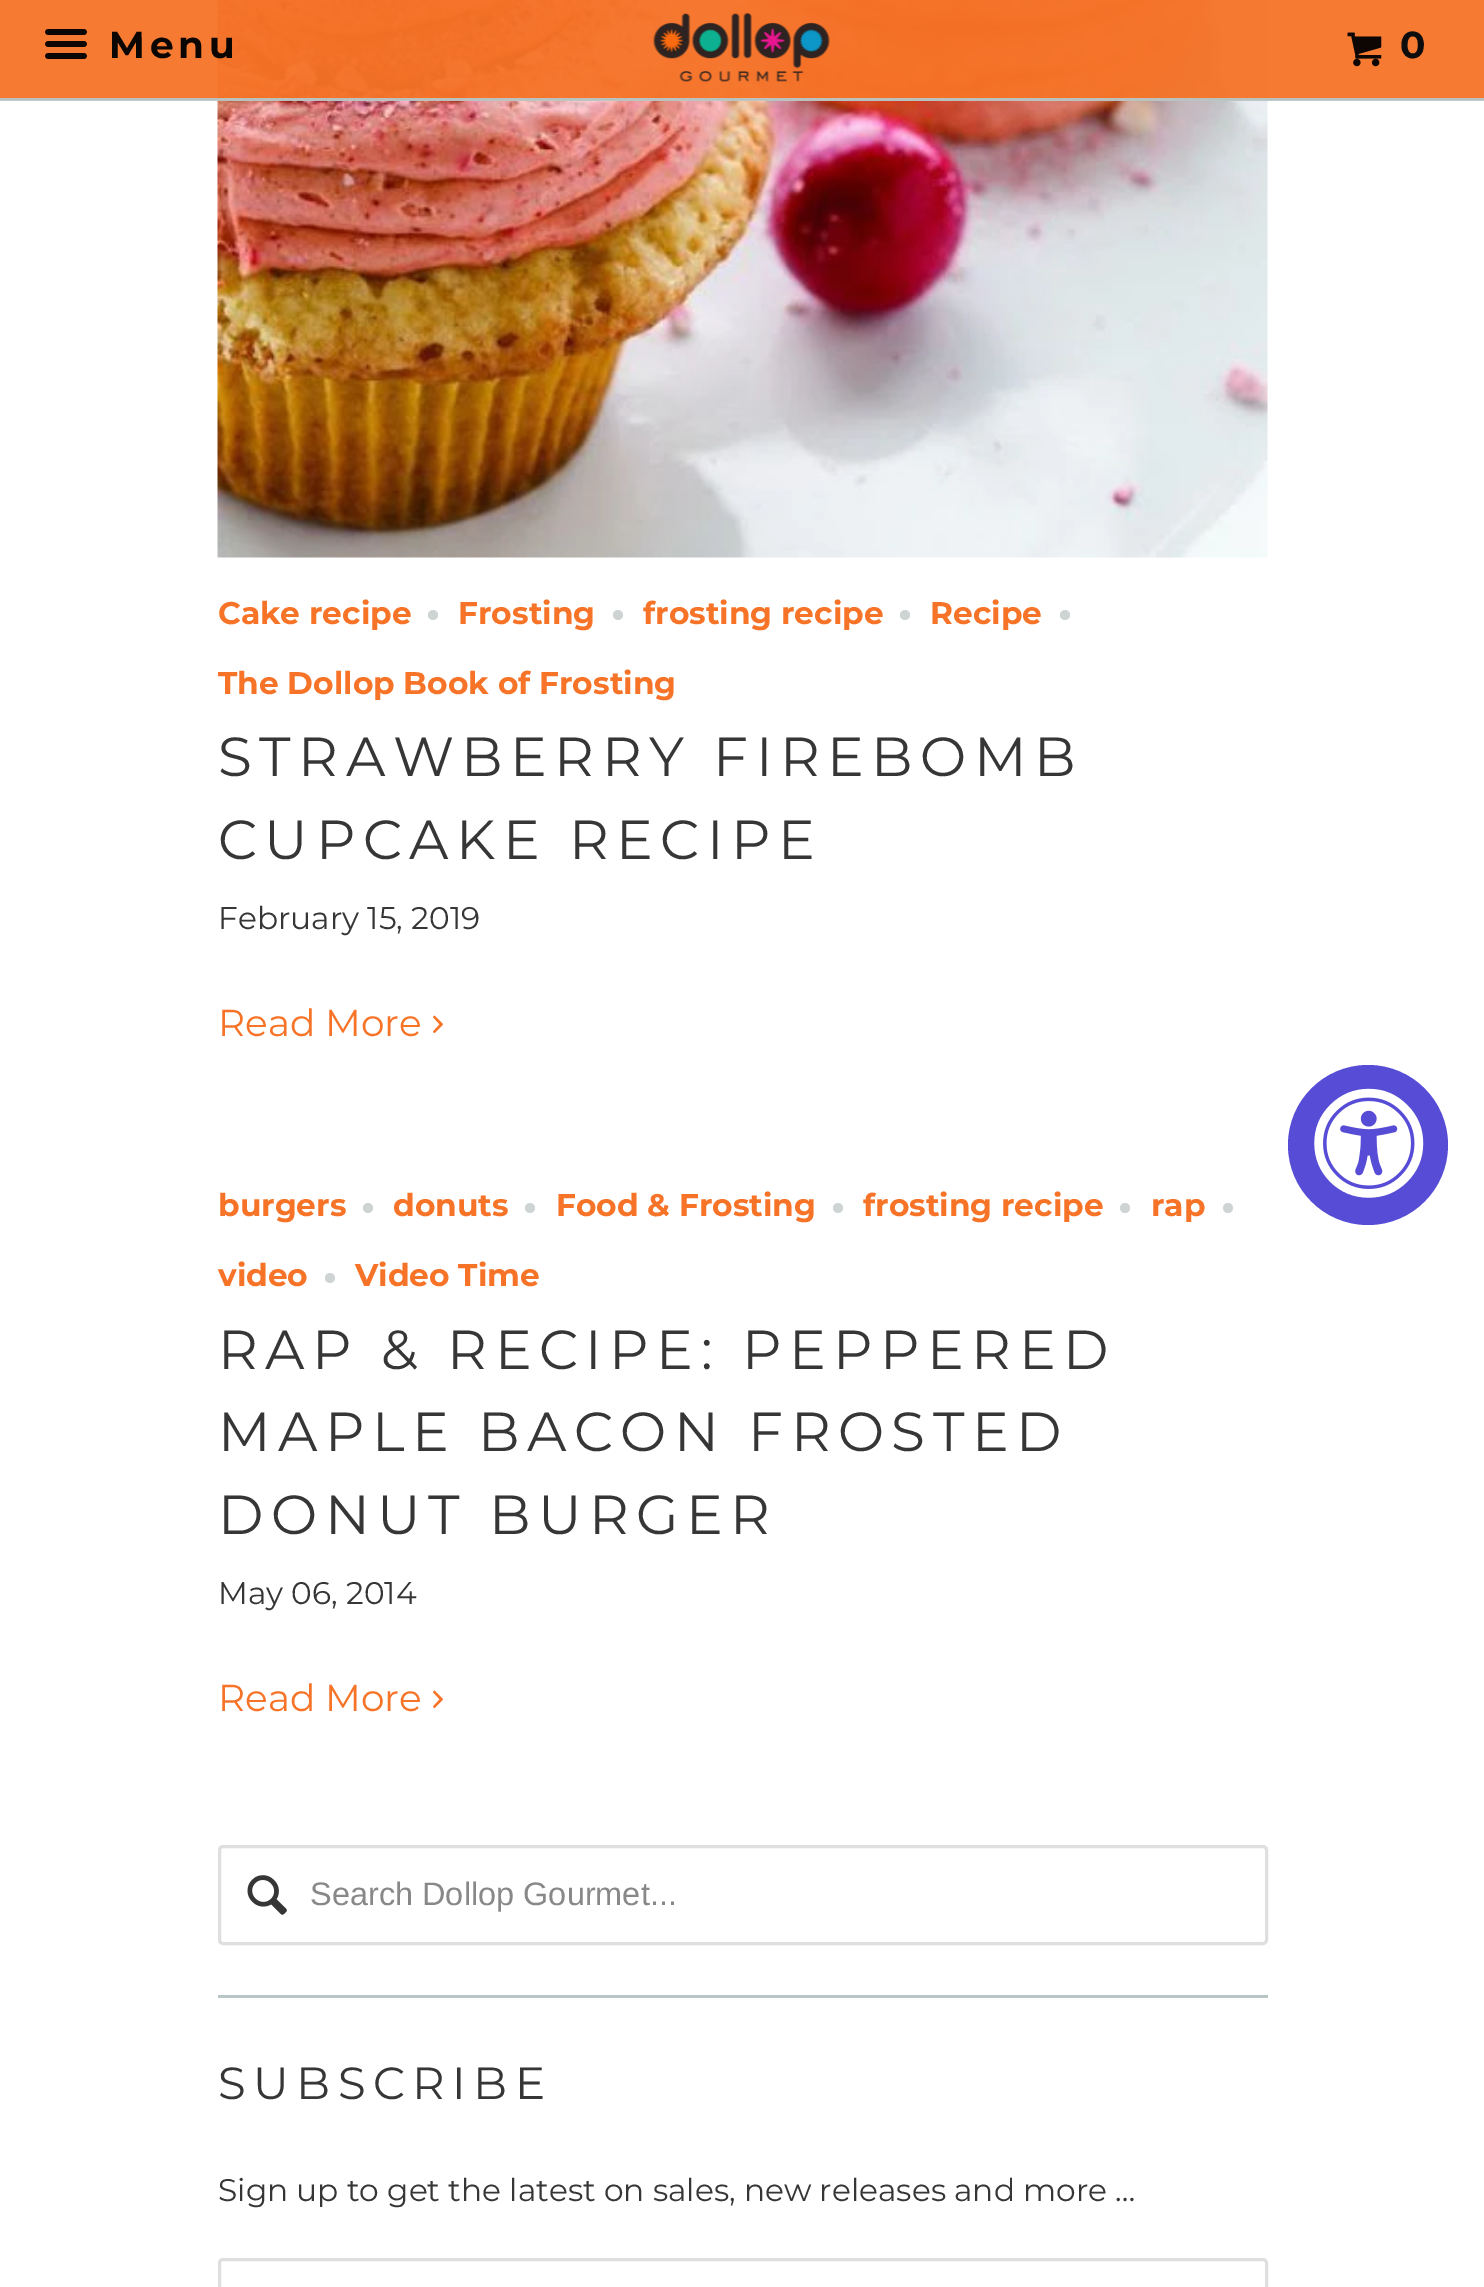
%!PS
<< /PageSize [1484 2287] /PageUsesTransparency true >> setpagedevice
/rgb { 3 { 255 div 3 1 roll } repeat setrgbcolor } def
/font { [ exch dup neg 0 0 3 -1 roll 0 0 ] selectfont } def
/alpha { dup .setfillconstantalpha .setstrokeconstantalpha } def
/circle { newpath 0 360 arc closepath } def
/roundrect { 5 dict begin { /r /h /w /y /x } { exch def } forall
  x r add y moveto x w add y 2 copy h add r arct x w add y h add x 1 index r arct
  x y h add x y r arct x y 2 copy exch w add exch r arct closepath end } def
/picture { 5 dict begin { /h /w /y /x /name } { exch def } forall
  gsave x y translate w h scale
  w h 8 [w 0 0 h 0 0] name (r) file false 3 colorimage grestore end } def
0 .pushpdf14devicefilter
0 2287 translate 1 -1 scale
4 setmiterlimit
255 255 255 rgb
0 0 1484 2287 rectfill
(img/4.rgb) 217 0 1051 558 picture
0.95 alpha
246 115 39 rgb
0 0 1484 100 rectfill
184 198 198 rgb
0 98 1484 3 rectfill
1 alpha
(img/1.rgb) 45 29 42 30 picture
(img/2.rgb) 653 12 177 70 picture
(img/3.rgb) 1347 32 35 35 picture
206 211 211 rgb
433 615 5 circle fill
618 615 5 circle fill
905 615 5 circle fill
1065 615 5 circle fill
(img/5.rgb) 433 1015 10 18 picture
368 1208 5 circle fill
530 1208 5 circle fill
838 1208 5 circle fill
1125 1208 5 circle fill
1228 1208 5 circle fill
330 1278 5 circle fill
(img/5.rgb) 433 1690 10 18 picture
223 223 223 rgb
3 setlinewidth
219.5 1846.5 1047 97 3.5 roundrect stroke
(img/6.rgb) 247 1875 40 40 picture
184 198 198 rgb
218 1995 1050 3 rectfill
223 223 223 rgb
219.5 2259.5 1047 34 3.5 roundrect stroke
87 76 213 rgb
1368 1145 80 circle fill
(img/7.rgb) 1314 1088 110 110 picture
/Montserrat-Bold 37.5 font
12 6 2 rgb
109 58 moveto 5 0 (Menu) ashow
13 13 13 rgb
1400 58 moveto 5 0 (0) ashow
/Montserrat-Bold 31.25 font
246 115 39 rgb
[
  [(Cake recipe) 218 624]
  [(Frosting) 458 624]
  [(frosting recipe) 643 624]
  [(Recipe) 930 624]
  [(The Dollop Book of Frosting) 218 694]
] { aload pop moveto show } forall
/Montserrat-Regular 55 font
54 54 54 rgb
218 776 moveto 7.5 0 (STRAWBERRY FIREBOMB) ashow
218 859 moveto 7.5 0 (CUPCAKE RECIPE) ashow
/Montserrat-Regular 31.25 font
218 929 moveto (February 15, 2019) show
/Montserrat-Regular 37.5 font
246 115 39 rgb
218 1036 moveto (Read More) show
/Montserrat-Bold 31.25 font
[
  [(burgers) 218 1216]
  [(donuts) 393 1216]
  [(Food & Frosting) 556 1216]
  [(frosting recipe) 863 1216]
  [(rap) 1151 1216]
  [(video) 218 1286]
  [(Video Time) 355 1286]
] { aload pop moveto show } forall
/Montserrat-Regular 55 font
54 54 54 rgb
218 1369 moveto 7.5 0 (RAP & RECIPE: PEPPERED) ashow
218 1451 moveto 7.5 0 (MAPLE BACON FROSTED) ashow
218 1534 moveto 7.5 0 (DONUT BURGER) ashow
/Montserrat-Regular 31.25 font
218 1604 moveto (May 06, 2014) show
/Montserrat-Regular 37.5 font
246 115 39 rgb
218 1711 moveto (Read More) show
/LiberationSans-Regular 32.5 font
136 136 136 rgb
310 1905 moveto (Search Dollop Gourmet...) show
/Montserrat-Regular 45 font
54 54 54 rgb
218 2099 moveto 7.5 0 (SUBSCRIBE) ashow
/Montserrat-Regular 31.25 font
218 2201 moveto (Sign up to get the latest on sales, new releases and more …) show
.poppdf14devicefilter showpage
